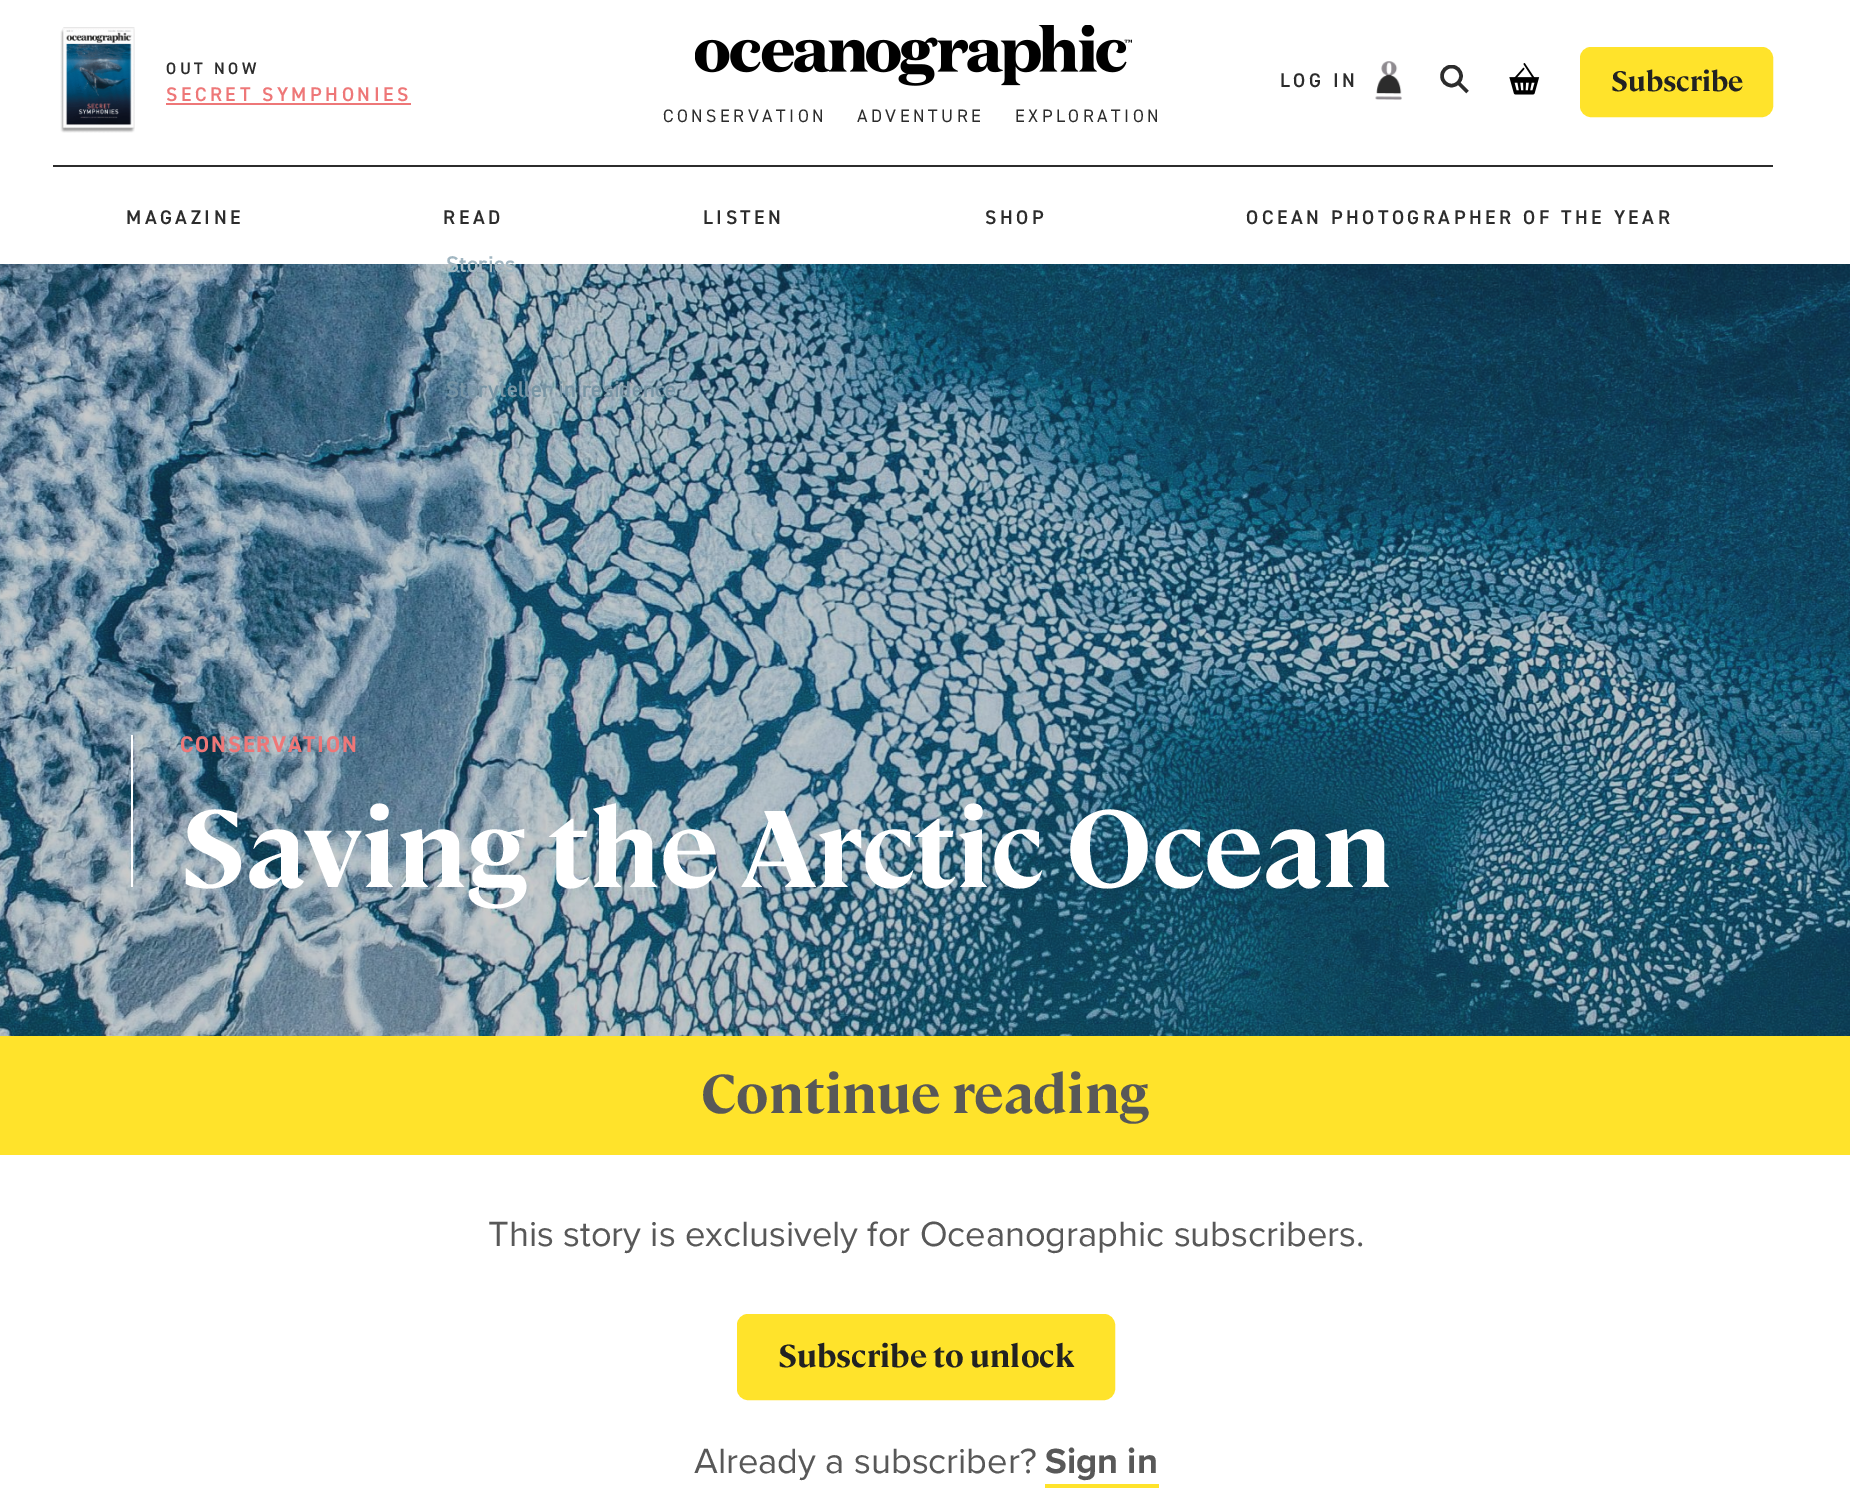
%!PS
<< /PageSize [1850 1496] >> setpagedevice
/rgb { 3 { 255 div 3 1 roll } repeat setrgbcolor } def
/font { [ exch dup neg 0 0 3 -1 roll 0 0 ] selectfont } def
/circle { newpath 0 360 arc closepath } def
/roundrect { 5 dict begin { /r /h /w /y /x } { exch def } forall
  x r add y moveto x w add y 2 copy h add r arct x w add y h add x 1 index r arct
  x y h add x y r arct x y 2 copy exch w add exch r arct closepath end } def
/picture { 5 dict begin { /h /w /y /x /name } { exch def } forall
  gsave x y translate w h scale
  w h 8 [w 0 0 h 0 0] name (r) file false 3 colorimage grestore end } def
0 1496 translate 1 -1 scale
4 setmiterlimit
255 255 255 rgb
0 0 1850 1496 rectfill
(img/1.rgb) 60 27 75 106 picture
238 119 120 rgb
166 103 245 2 rectfill
(img/2.rgb) 1375 61 27 39 picture
gsave
1440 65 28 28 rectclip
44 44 44 rgb
3.5 setlinewidth
1451.5 76 9.5 circle stroke
grestore
44 44 44 rgb
3.5 setlinewidth
1458.5 83 moveto 1467.5 92 lineto stroke
(img/3.rgb) 1509 63 31 32 picture
255 227 43 rgb
1581 48 191 68 10 roundrect gsave fill grestore
2 setlinewidth
stroke
(img/4.rgb) 695 25 437 61 picture
44 44 44 rgb
53 165 1720 2 rectfill
(img/5.rgb) 0 264 1850 772 picture
255 255 255 rgb
131 735 2 152 rectfill
255 227 43 rgb
0 1036 1850 119 rectfill
738 1315 376 84 10 roundrect gsave fill grestore
stroke
1045 1484 114 4 rectfill
/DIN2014-SemiBold 16.5 font
44 44 44 rgb
166 74 moveto 3.5 0 (OUT NOW) ashow
/DIN2014-SemiBold 19.75 font
238 119 120 rgb
166 101 moveto 3.5 0 (SECRET SYMPHONIES) ashow
44 44 44 rgb
1280 87 moveto 3.5 0 (LOG IN) ashow
/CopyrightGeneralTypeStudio-Bold 28 font
34 34 34 rgb
1611 91 moveto (Subscribe) show
/DIN2014-Regular 18.1 font
44 44 44 rgb
663 122 moveto 3.5 0 (CONSERVATION) ashow
857 122 moveto 3.5 0 (ADVENTURE) ashow
1015 122 moveto 3.5 0 (EXPLORATION) ashow
/DIN2014-SemiBold 19.75 font
126 224 moveto 3.5 0 (MAGAZINE) ashow
443 224 moveto 3.5 0 (READ) ashow
/DIN2014-SemiBold 22.75 font
161 182 193 rgb
446 272 moveto 0.25 0 (Stories) ashow
119 148 164 rgb
446 397 moveto 0.25 0 (Storyteller in residence) ashow
/DIN2014-SemiBold 19.75 font
44 44 44 rgb
703 224 moveto 3.5 0 (LISTEN) ashow
985 224 moveto 3.5 0 (SHOP) ashow
1246 224 moveto 3.5 0 (OCEAN PHOTOGRAPHER OF THE YEAR) ashow
/DIN2014-Bold 22.75 font
238 119 120 rgb
180 752 moveto 1.75 0 (CONSERVATION) ashow
/CopyrightGeneralTypeStudio-Bold 108.75 font
255 255 255 rgb
180 887 moveto (Saving the Arctic Ocean) show
/CopyrightGeneralTypeStudio-Bold 54.25 font
88 88 88 rgb
701 1113 moveto (Continue reading) show
/ProximaNova-Regular 36.25 font
488 1246 moveto (This story is exclusively for Oceanographic subscribers.) show
/CopyrightGeneralTypeStudio-Bold 31.5 font
34 34 34 rgb
778 1367 moveto (Subscribe to unlock) show
/ProximaNova-Regular 36.25 font
88 88 88 rgb
694 1473 moveto (Already a subscriber?) show
/ProximaNova-Bold 36.25 font
1045 1473 moveto (Sign in) show
showpage
